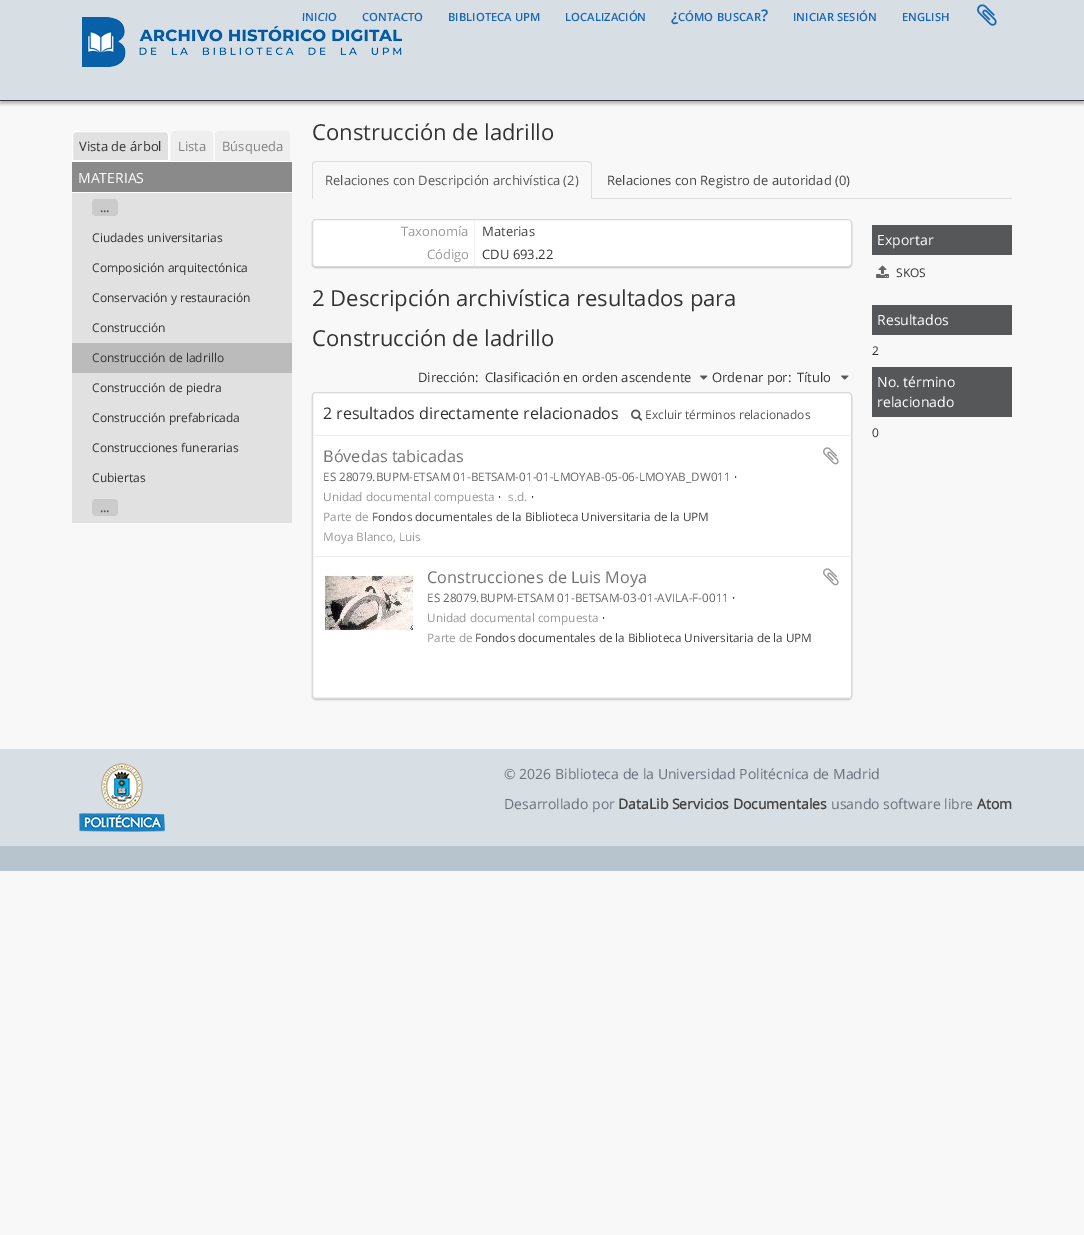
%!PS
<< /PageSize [1084 1235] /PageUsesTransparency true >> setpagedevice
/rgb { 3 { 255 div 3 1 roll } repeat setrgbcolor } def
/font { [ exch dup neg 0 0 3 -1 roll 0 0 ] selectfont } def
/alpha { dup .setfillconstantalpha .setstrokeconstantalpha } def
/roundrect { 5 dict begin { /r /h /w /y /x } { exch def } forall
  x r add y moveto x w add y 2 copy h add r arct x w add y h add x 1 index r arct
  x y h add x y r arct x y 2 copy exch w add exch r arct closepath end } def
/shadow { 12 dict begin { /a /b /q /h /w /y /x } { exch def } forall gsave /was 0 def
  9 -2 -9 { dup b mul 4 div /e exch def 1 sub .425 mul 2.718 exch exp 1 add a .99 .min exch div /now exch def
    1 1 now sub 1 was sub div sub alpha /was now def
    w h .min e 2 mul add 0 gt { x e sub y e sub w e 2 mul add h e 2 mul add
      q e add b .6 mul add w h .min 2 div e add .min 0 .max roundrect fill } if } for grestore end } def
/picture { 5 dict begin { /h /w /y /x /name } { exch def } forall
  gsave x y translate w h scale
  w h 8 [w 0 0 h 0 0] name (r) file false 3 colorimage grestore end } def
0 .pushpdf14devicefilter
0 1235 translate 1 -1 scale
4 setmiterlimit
248 248 248 rgb
0 0 1084 1235 rectfill
0 0 0 rgb
0 3 1084 101 0 1.5 0.25 shadow
215 222 228 rgb
0 0 1084 100 rectfill
51 51 51 rgb
0 100 1084 1 rectfill
(img/2.rgb) 977 4 20 22 picture
255 255 255 rgb
72 161 220 1 rectfill
225 225 225 rgb
76 131.5 moveto 165 131.5 lineto 167 131.5 168.5 133 168.5 135 curveto 168.5 160.5 lineto 72.5 160.5 lineto 72.5 135 lineto 72.5 133 74 131.5 76 131.5 curveto closepath gsave fill grestore
255 255 255 rgb
stroke
238 238 238 rgb
175 131 moveto 209 131 lineto 211 131 213 133 213 135 curveto 213 161 lineto 171 161 lineto 171 135 lineto 171 133 173 131 175 131 curveto closepath fill
219 131 moveto 286 131 lineto 288 131 290 133 290 135 curveto 290 161 lineto 215 161 lineto 215 135 lineto 215 133 217 131 219 131 curveto closepath fill
[
  [72 162 220 30 138 138 138]
  [72 192 220 1 255 255 255]
  [72 193 220 150 225 225 225]
] { aload pop rgb rectfill } forall
203 203 203 rgb
92 199 26 17 4 roundrect fill
187 187 187 rgb
72 343 220 30 rectfill
225 225 225 rgb
72 373 220 150 rectfill
203 203 203 rgb
92 499 26 17 4 roundrect fill
221 221 221 rgb
592 198 420 1 rectfill
316 161 moveto 313 162 lineto 314 163 lineto 315 162 lineto 588 162 lineto 590 163 lineto 591 162 lineto 588 161 lineto closepath fill
592 199 moveto 592 165 lineto 592 164 591.5 163 591 162 curveto 590 163 lineto 591 163 591 164 591 165 curveto 591 198 lineto closepath fill
312 199 moveto 313 198 lineto 313 165 lineto 313 164 313 163 314 163 curveto 313 162 lineto 312.5 163 312 164 312 165 curveto closepath fill
0 0 0 rgb
312 220 540 48 4 0.5 0.2 shadow
255 255 255 rgb
312.5 219.5 539 47 3.5 roundrect gsave fill grestore
217 217 217 rgb
stroke
242 242 242 rgb
474 220 1 46 rectfill
(img/3.rgb) 700 375 8 5 picture
(img/3.rgb) 841 375 8 5 picture
0 0 0 rgb
312 393 540 307 4 0.5 0.2 shadow
255 255 255 rgb
312.5 392.5 539 306 3.5 roundrect gsave fill grestore
217 217 217 rgb
stroke
238 238 238 rgb
313 435 538 1 rectfill
(img/4.rgb) 631 409 12 12 picture
313 556 538 1 rectfill
(img/5.rgb) 823 447 16 18 picture
313 697 538 1 rectfill
(img/6.rgb) 325 567 88 64 picture
(img/5.rgb) 823 568 16 18 picture
85 87 89 rgb
872 225 140 30 rectfill
(img/7.rgb) 876 265 13 13 picture
[
  [872 305 140 30 85 87 89]
  [872 367 140 50 85 87 89]
  [0 749 1084 97 215 222 228]
  [0 846 1084 25 183 196 206]
] { aload pop rgb rectfill } forall
(img/8.rgb) 79 763 86 69 picture
/OpenSans-SemiBold 11.25 font
24 103 183 rgb
302 21 moveto (INICIO) show
362 21 moveto (CONTACTO) show
(img/1.rgb) 82 17 320 50 picture
[
  [(BIBLIOTECA) 448 21]
  [(UPM) 515 21]
  [(LOCALIZACIÓN) 565 21]
] { aload pop moveto show } forall
/OpenSans-SemiBold 16 font
671 21 moveto (¿) show
/OpenSans-SemiBold 11.25 font
678 21 moveto (CÓMO) show
717 21 moveto (BUSCAR) show
/OpenSans-SemiBold 16 font
761 21 moveto (?) show
/OpenSans-SemiBold 11.25 font
[
  [(INICIAR) 793 21]
  [(SESIÓN) 837 21]
  [(ENGLISH) 902 21]
] { aload pop moveto show } forall
/OpenSans-Regular 13 font
51 51 51 rgb
79 151 moveto (Vista de árbol) show
128 128 128 rgb
178 151 moveto (Lista) show
222 151 moveto (Búsqueda) show
/OpenSans-Regular 14 font
255 255 255 rgb
78 183 moveto (MATERIAS) show
/OpenSans-Bold 12 font
85 85 85 rgb
100 212 moveto (...) show
/OpenSans-Regular 12 font
51 51 51 rgb
[
  [(Ciudades universitarias) 92 242]
  [(Composición arquitectónica) 92 272]
  [(Conservación y restauración) 92 302]
  [(Construcción) 92 332]
  [(Construcción de ladrillo) 92 362]
  [(Construcción de piedra) 92 392]
  [(Construcción prefabricada) 92 422]
  [(Construcciones funerarias) 92 452]
  [(Cubiertas) 92 482]
] { aload pop moveto show } forall
/OpenSans-Bold 12 font
85 85 85 rgb
100 512 moveto (...) show
/OpenSans-Regular 22 font
51 51 51 rgb
312 140 moveto (Construcción de ladrillo) show
/OpenSans-Regular 13 font
85 85 85 rgb
325 185 moveto (Relaciones con Descripción archivística \(2\)) show
68 68 68 rgb
607 185 moveto (Relaciones con Registro de autoridad \(0\)) show
153 153 153 rgb
401 236 moveto (Taxonomía) show
68 68 68 rgb
482 236 moveto (Materias) show
153 153 153 rgb
427 259 moveto (Código) show
51 51 51 rgb
482 259 moveto (CDU 693.22) show
/OpenSans-Regular 22 font
312 306 moveto (2 Descripción archivística resultados para) show
312 346 moveto (Construcción de ladrillo) show
/OpenSans-Regular 13 font
[
  [(Dirección:) 418 382]
  [(Clasificación en orden ascendente) 485 382]
  [(Ordenar por:) 712 382]
  [(Título) 797 382]
] { aload pop moveto show } forall
/OpenSans-Regular 16 font
323 419 moveto (2 resultados directamente relacionados) show
/OpenSans-Regular 12 font
85 85 85 rgb
645 419 moveto (Excluir términos relacionados) show
/OpenSans-Regular 16.25 font
115 116 117 rgb
323 462 moveto (Bóvedas tabicadas) show
/OpenSans-Regular 11.7 font
102 102 102 rgb
323 481 moveto (ES 28079.BUPM-ETSAM 01-BETSAM-01-01-LMOYAB-05-06-LMOYAB_DW011) show
0 0 0 rgb
734 481 moveto (·) show
153 153 153 rgb
323 501 moveto (Unidad documental compuesta) show
0 0 0 rgb
498 501 moveto (·) show
153 153 153 rgb
508 501 moveto (s.d.) show
0 0 0 rgb
531 501 moveto (·) show
153 153 153 rgb
323 521 moveto (Parte de) show
68 68 68 rgb
372 521 moveto (Fondos documentales de la Biblioteca Universitaria de la UPM) show
153 153 153 rgb
323 541 moveto (Moya Blanco, Luis) show
/OpenSans-Regular 16.25 font
115 116 117 rgb
427 583 moveto (Construcciones de Luis Moya) show
/OpenSans-Regular 11.7 font
102 102 102 rgb
427 602 moveto (ES 28079.BUPM-ETSAM 01-BETSAM-03-01-AVILA-F-0011) show
0 0 0 rgb
732 602 moveto (·) show
153 153 153 rgb
427 622 moveto (Unidad documental compuesta) show
0 0 0 rgb
602 622 moveto (·) show
153 153 153 rgb
427 642 moveto (Parte de) show
68 68 68 rgb
475 642 moveto (Fondos documentales de la Biblioteca Universitaria de la UPM) show
/OpenSans-Regular 14 font
255 255 255 rgb
877 245 moveto (Exportar) show
/OpenSans-Regular 12 font
51 51 51 rgb
896 277 moveto (SKOS) show
/OpenSans-Regular 14 font
255 255 255 rgb
877 325 moveto (Resultados) show
/OpenSans-Regular 12 font
51 51 51 rgb
872 355 moveto (2) show
/OpenSans-Regular 14 font
255 255 255 rgb
877 387 moveto (No. término) show
877 407 moveto (relacionado) show
/OpenSans-Regular 12 font
51 51 51 rgb
872 437 moveto (0) show
/OpenSans-Regular 14 font
109 113 126 rgb
504 779 moveto (© 2026 Biblioteca de la Universidad Politécnica de Madrid) show
504 809 moveto (Desarrollado por) show
/OpenSans-Bold 14 font
68 68 68 rgb
618 809 moveto (DataLib Servicios Documentales) show
/OpenSans-Regular 14 font
109 113 126 rgb
831 809 moveto (usando software libre) show
/OpenSans-Bold 14 font
68 68 68 rgb
977 809 moveto (Atom) show
.poppdf14devicefilter showpage
